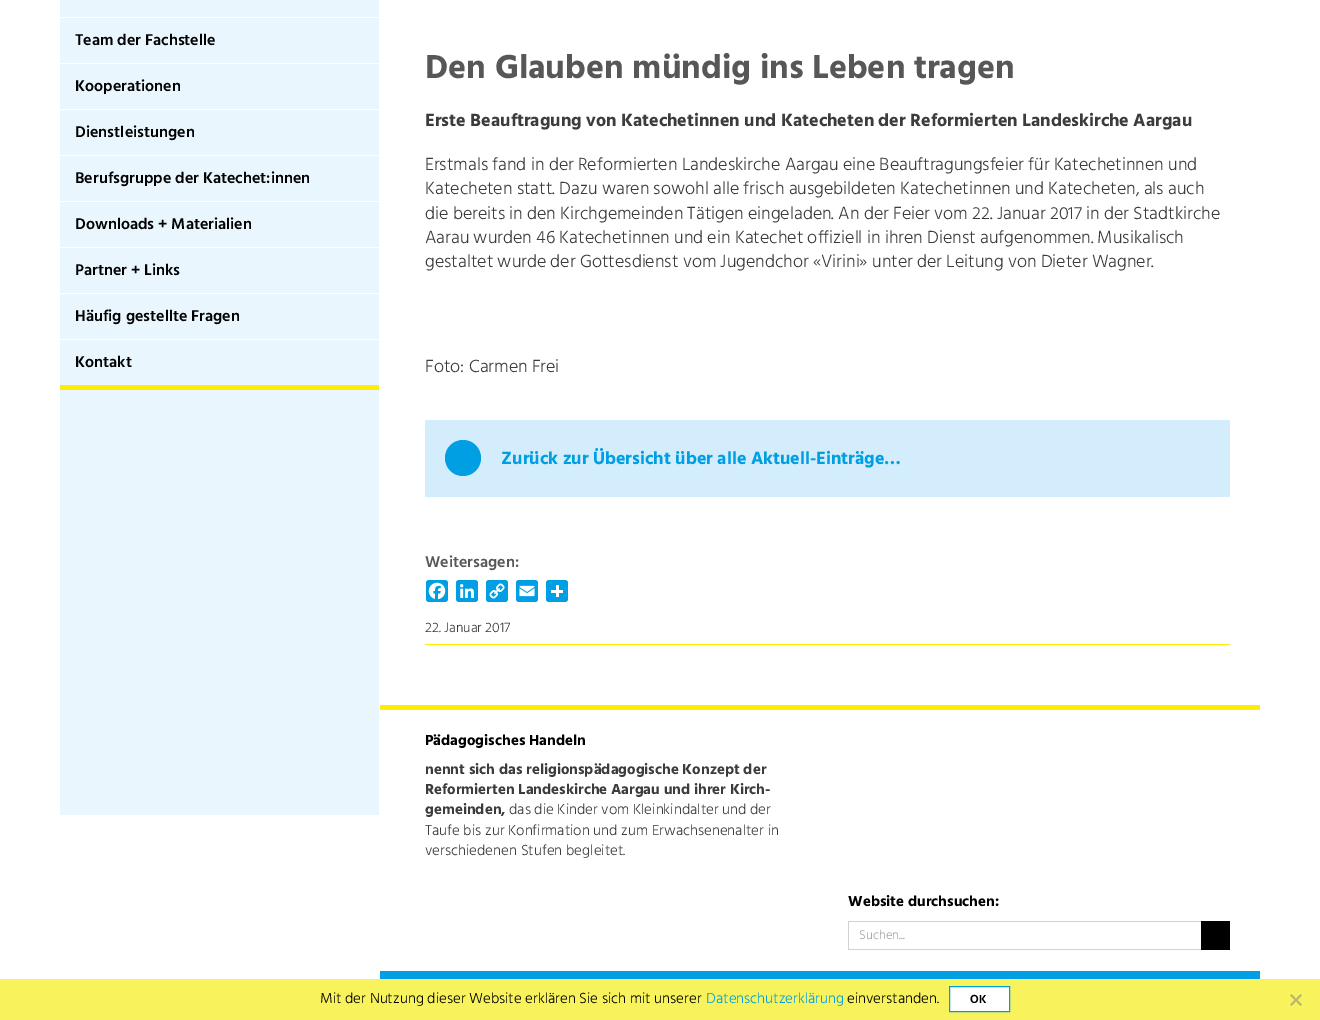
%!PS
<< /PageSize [1320 1020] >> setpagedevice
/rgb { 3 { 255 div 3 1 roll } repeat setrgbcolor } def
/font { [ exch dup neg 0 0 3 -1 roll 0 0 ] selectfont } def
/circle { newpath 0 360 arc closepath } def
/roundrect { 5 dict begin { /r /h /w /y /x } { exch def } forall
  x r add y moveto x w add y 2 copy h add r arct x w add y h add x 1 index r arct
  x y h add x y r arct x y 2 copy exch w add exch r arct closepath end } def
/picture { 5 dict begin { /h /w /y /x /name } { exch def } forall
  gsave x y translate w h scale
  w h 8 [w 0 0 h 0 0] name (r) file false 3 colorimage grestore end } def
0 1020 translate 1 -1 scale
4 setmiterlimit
255 255 255 rgb
0 0 1320 1020 rectfill
[
  [60 0 319 815 234 246 254]
  [60 17 319 1 255 255 255]
  [60 63 319 1 255 255 255]
  [60 109 319 1 255 255 255]
  [60 155 319 1 255 255 255]
  [60 201 319 1 255 255 255]
  [60 247 319 1 255 255 255]
  [60 293 319 1 255 255 255]
  [60 339 319 1 255 255 255]
  [60 385 319 5 255 237 0]
  [425 420 805 77 212 237 252]
] { aload pop rgb rectfill } forall
0 159 227 rgb
463 458 18 circle fill
426 580 22 22 3 roundrect fill
(img/1.rgb) 428 582 18 18 picture
456 580 22 22 3 roundrect fill
(img/2.rgb) 460 584 14 14 picture
486 580 22 22 3 roundrect fill
(img/3.rgb) 489 583 16 16 picture
516 580 22 22 3 roundrect fill
(img/4.rgb) 519 585 16 12 picture
546 580 22 22 3 roundrect fill
[
  [556 585 3 12 255 255 255]
  [551 590 12 3 255 255 255]
  [425 644 805 1 255 237 0]
  [380 705 880 5 255 237 0]
  [848 921 353 1 210 210 210]
  [848 949 353 1 210 210 210]
  [848 921 1 29 210 210 210]
  [1201 921 29 29 0 0 0]
  [380 971 880 8 0 159 227]
  [0 979 1320 41 248 243 92]
] { aload pop rgb rectfill } forall
255 255 255 rgb
949.5 986.5 moveto 1009.5 986.5 lineto 1009.5 1011.5 lineto 949.5 1011.5 lineto closepath gsave fill grestore
0 159 227 rgb
stroke
188 186 110 rgb
1300.5 994 moveto 1302 995.5 lineto 1291.5 1006 lineto 1290 1004.5 lineto closepath fill
1290 995.5 moveto 1291.5 994 lineto 1302 1004.5 lineto 1300.5 1006 lineto closepath fill
/Hind-SemiBold 16 font
0 0 0 rgb
[
  [(Team der Fachstelle) 75 45]
  [(Kooperationen) 75 91]
  [(Dienstleistungen) 75 137]
  [(Berufsgruppe der Katechet:innen) 75 183]
  [(Downloads + Materialien) 75 229]
  [(Partner + Links) 75 275]
  [(Häufig gestellte Fragen) 75 321]
  [(Kontakt) 75 367]
] { aload pop moveto show } forall
/Hind-Bold 34 font
87 87 87 rgb
425 78 moveto (Den Glauben mündig ins Leben tragen) show
/Hind-Bold 18 font
60 60 59 rgb
425 126 moveto (Erste Beauftragung von Katechetinnen und Katecheten der Reformierten Landeskirche Aargau) show
/Hind-Light 18 font
[
  [(Erstmals fand in der Reformierten Landeskirche Aargau eine Beauftragungsfeier für Katechetinnen und) 425 170]
  [(Katecheten statt. Dazu waren sowohl alle frisch ausgebildeten Katechetinnen und Katecheten, als auch) 425 194]
  [(die bereits in den Kirchgemeinden Tätigen eingeladen. An der Feier vom 22. Januar 2017 in der Stadtkirche) 425 219]
  [(Aarau wurden 46 Katechetinnen und ein Katechet offiziell in ihren Dienst aufgenommen. Musikalisch) 425 243]
  [(gestaltet wurde der Gottesdienst vom Jugendchor «Virini» unter der Leitung von Dieter Wagner.) 425 267]
  [(Foto: Carmen Frei) 425 372]
] { aload pop moveto show } forall
/Hind-Bold 18 font
0 159 227 rgb
501 464 moveto (Zurück zur Übersicht über alle Aktuell-Einträge…) show
/Hind-SemiBold 16 font
87 87 87 rgb
425 567 moveto (Weitersagen:) show
/Hind-Light 14 font
60 60 59 rgb
425 632 moveto (22. Januar 2017) show
/Hind-Bold 15 font
0 0 0 rgb
425 745 moveto (Pädagogisches Handeln) show
60 60 59 rgb
[
  [(nennt sich das religionspädagogische Konzept der) 425 774]
  [(Reformierten Landeskirche Aargau und ihrer Kirch-) 425 794]
  [(gemeinden,) 425 814]
] { aload pop moveto show } forall
/Hind-Light 15 font
[
  [(das die Kinder vom Kleinkindalter und der) 509 814]
  [(Taufe bis zur Konfirmation und zum Erwachsenenalter in) 425 835]
  [(verschiedenen Stufen begleitet.) 425 855]
] { aload pop moveto show } forall
/Hind-Bold 15 font
0 0 0 rgb
848 906 moveto (Website durchsuchen:) show
/Hind-Light 13 font
170 169 169 rgb
859 939 moveto (Suchen...) show
/Hind-Light 15 font
0 0 0 rgb
320 1003 moveto (Mit der Nutzung dieser Website erklären Sie sich mit unserer) show
0 159 227 rgb
706 1003 moveto (Datenschutzerklärung) show
0 0 0 rgb
847 1003 moveto (einverstanden.) show
/Hind-SemiBold 12 font
970 1003 moveto (OK) show
showpage
